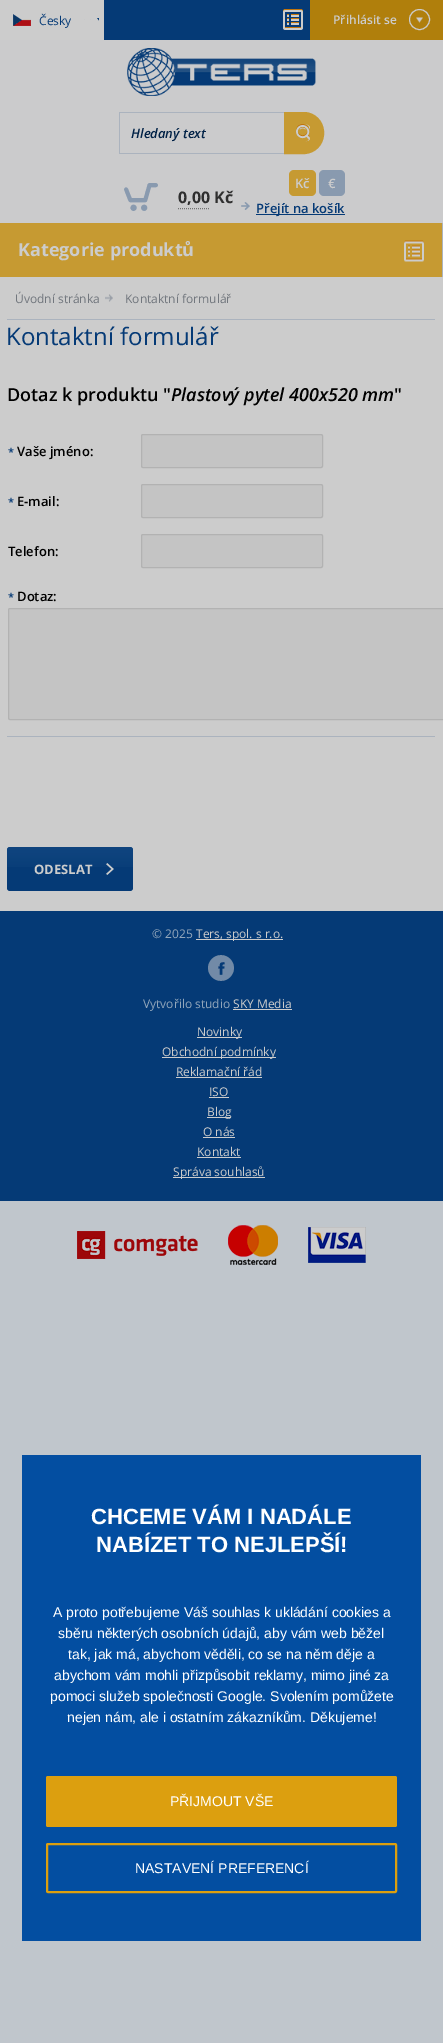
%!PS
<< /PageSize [443 2043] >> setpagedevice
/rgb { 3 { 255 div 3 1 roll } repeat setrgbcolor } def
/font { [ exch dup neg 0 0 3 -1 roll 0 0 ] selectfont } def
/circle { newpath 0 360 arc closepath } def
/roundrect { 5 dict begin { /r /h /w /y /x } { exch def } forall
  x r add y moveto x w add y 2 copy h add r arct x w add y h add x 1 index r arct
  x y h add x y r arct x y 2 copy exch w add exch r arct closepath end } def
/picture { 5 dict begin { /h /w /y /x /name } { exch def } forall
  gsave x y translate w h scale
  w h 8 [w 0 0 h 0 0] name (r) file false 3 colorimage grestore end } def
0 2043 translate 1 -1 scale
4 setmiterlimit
192 198 204 rgb
0 0 443 2043 rectfill
204 204 204 rgb
0 0 104 40 rectfill
(img/1.rgb) 13 14 18 12 picture
(img/2.rgb) 84 18 15 3 picture
5 58 118 rgb
104 0 206 40 rectfill
(img/3.rgb) 283 9 20 21 picture
176 127 12 rgb
310 0 133 40 rectfill
(img/4.rgb) 416 17 14 6 picture
204 204 204 rgb
419.5 19.5 10 circle stroke
203 203 204 rgb
0 40 443 183 rectfill
(img/5.rgb) 127 48 189 48 picture
[
  [119 112 165 1 171 179 190]
  [119 153 165 1 171 179 190]
  [119 112 1 42 171 179 190]
] { aload pop rgb rectfill } forall
198 154 50 rgb
296 124 moveto 299 124 304 123.5 306.5 124.5 curveto 311.5 127.5 311.5 138.5 306.5 141.5 curveto 304 142.5 299 142 296 142 curveto closepath fill
12 setlinewidth
290 118 moveto 304 118 lineto 311.5 118 318 124.5 318 132 curveto 318 134 lineto 318 141.5 311.5 148 304 148 curveto 290 148 lineto closepath stroke
310 122 2 22 rectfill
(img/6.rgb) 296 124 14 17 picture
289 170 27 26 5 roundrect fill
137 154 175 rgb
319 170 26 26 5 roundrect fill
(img/7.rgb) 124 183 34 28 picture
112 112 112 rgb
1 setlinewidth
[1 1] 0 setdash
178 208.5 moveto 210 208.5 lineto stroke
(img/8.rgb) 241 202 9 8 picture
[
  [256 214 89 1 5 58 118]
  [0 277 443 634 204 204 204]
  [0 223 442 54 198 154 50]
  [442 223 1 54 171 179 190]
] { aload pop rgb rectfill } forall
(img/9.rgb) 404 240 20 22 picture
7 319 428 1 rectfill
(img/10.rgb) 105 294 8 8 picture
196 196 196 rgb
141.5 434.5 181 33 1.5 roundrect gsave fill grestore
178 178 178 rgb
[] 0 setdash
stroke
196 196 196 rgb
141.5 484.5 181 33 1.5 roundrect gsave fill grestore
178 178 178 rgb
stroke
196 196 196 rgb
141.5 534.5 181 33 1.5 roundrect gsave fill grestore
178 178 178 rgb
stroke
196 196 196 rgb
8.5 608.5 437 111 1.5 roundrect gsave fill grestore
178 178 178 rgb
stroke
171 179 190 rgb
7 736 428 1 rectfill
5 58 118 rgb
7 847 126 44 3 roundrect fill
(img/11.rgb) 7 847 126 20 picture
(img/12.rgb) 106 863 8 12 picture
0 911 443 290 rectfill
204 204 204 rgb
196 939 87 1 rectfill
(img/13.rgb) 208 955 26 26 picture
[
  [233 1009 59 1 204 204 204]
  [197 1037 45 1 204 204 204]
  [162 1057 114 1 204 204 204]
  [176 1077 86 1 204 204 204]
  [209 1097 20 1 204 204 204]
  [207 1117 24 1 204 204 204]
  [203 1137 32 1 204 204 204]
  [197 1157 44 1 204 204 204]
  [173 1177 92 1 204 204 204]
] { aload pop rgb rectfill } forall
(img/14.rgb) 77 1225 289 40 picture
3 78 161 rgb
22 1455 399 486 rectfill
220 159 15 rgb
46 1776 351 51 2 roundrect fill
2 setlinewidth
47 1844 349 48 1 roundrect stroke
/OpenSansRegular-Regular 12 font
5 58 118 rgb
39 25 moveto (Česky) show
/OpenSans-SemiBold 12 font
204 204 204 rgb
333 24 moveto (Přihlásit se) show
/OpenSans-SemiBoldItalic 13 font
0 33 70 rgb
131 138 moveto (Hledaný text) show
/OpenSans-SemiBold 13 font
204 204 204 rgb
295 188 moveto (Kč) show
328 188 moveto (€) show
/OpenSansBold-Bold 16 font
47 47 47 rgb
178 203 moveto (0,00 Kč) show
/OpenSans-SemiBold 13 font
5 58 118 rgb
256 213 moveto (Přejít na košík) show
/OpenSansBold-Bold 18 font
204 204 204 rgb
18 256 moveto (Kategorie produktů) show
/OpenSansRegular-Regular 12 font
114 119 126 rgb
15 303 moveto (Úvodní stránka) show
125 303 moveto (Kontaktní formulář) show
/OpenSansRegular-Regular 24 font
5 58 118 rgb
6 345 moveto (Kontaktní formulář) show
/OpenSans-SemiBold 18 font
0 0 0 rgb
7 401 moveto (Dotaz k produktu ") show
/OpenSans-SemiBoldItalic 18 font
171 401 moveto (Plastový pytel 400x520 mm) show
/OpenSans-SemiBold 18 font
394 401 moveto (") show
/OpenSans-SemiBold 11 font
5 58 118 rgb
8 456 moveto (*) show
/OpenSans-SemiBold 13 font
0 0 0 rgb
17 456 moveto (Vaše jméno:) show
/OpenSans-SemiBold 11 font
5 58 118 rgb
8 506 moveto (*) show
/OpenSans-SemiBold 13 font
0 0 0 rgb
17 506 moveto (E-mail:) show
8 556 moveto (Telefon:) show
/OpenSans-SemiBold 11 font
5 58 118 rgb
8 601 moveto (*) show
/OpenSans-SemiBold 13 font
0 0 0 rgb
17 601 moveto (Dotaz:) show
/OpenSansBold-Bold 13 font
204 204 204 rgb
34 874 moveto (ODESLAT) show
/OpenSansRegular-Regular 12 font
146 166 187 rgb
152 938 moveto (© 2025) show
204 204 204 rgb
196 938 moveto (Ters, spol. s r.o.) show
146 166 187 rgb
143 1008 moveto (Vytvořilo studio) show
204 204 204 rgb
[
  [(SKY Media) 233 1008]
  [(Novinky) 197 1036]
  [(Obchodní podmínky) 162 1056]
  [(Reklamační řád) 176 1076]
  [(ISO) 209 1096]
  [(Blog) 207 1116]
  [(O nás) 203 1136]
  [(Kontakt) 197 1156]
  [(Správa souhlasů) 173 1176]
] { aload pop moveto show } forall
/LiberationSans-Bold 22 font
255 255 255 rgb
91 1524 moveto (CHCEME VÁM I NADÁLE) show
96 1552 moveto (NABÍZET TO NEJLEPŠÍ!) show
/LiberationSans-Regular 14 font
[
  [(A proto potřebujeme Váš souhlas k ukládání cookies a) 53 1617]
  [(sběru některých osobních údajů, aby vám web běžel) 58 1638]
  [(tak, jak má, abychom věděli, co se na něm děje a) 68 1659]
  [(abychom vám mohli přizpůsobit reklamy, mimo jiné za) 54 1680]
  [(pomoci služeb společnosti Google. Svolením pomůžete) 50 1701]
  [(nejen nám, ale i ostatním zákazníkům. Děkujeme!) 67 1722]
  [(PŘIJMOUT VŠE) 170 1806]
  [(NASTAVENÍ PREFERENCÍ) 135 1873]
] { aload pop moveto show } forall
showpage
